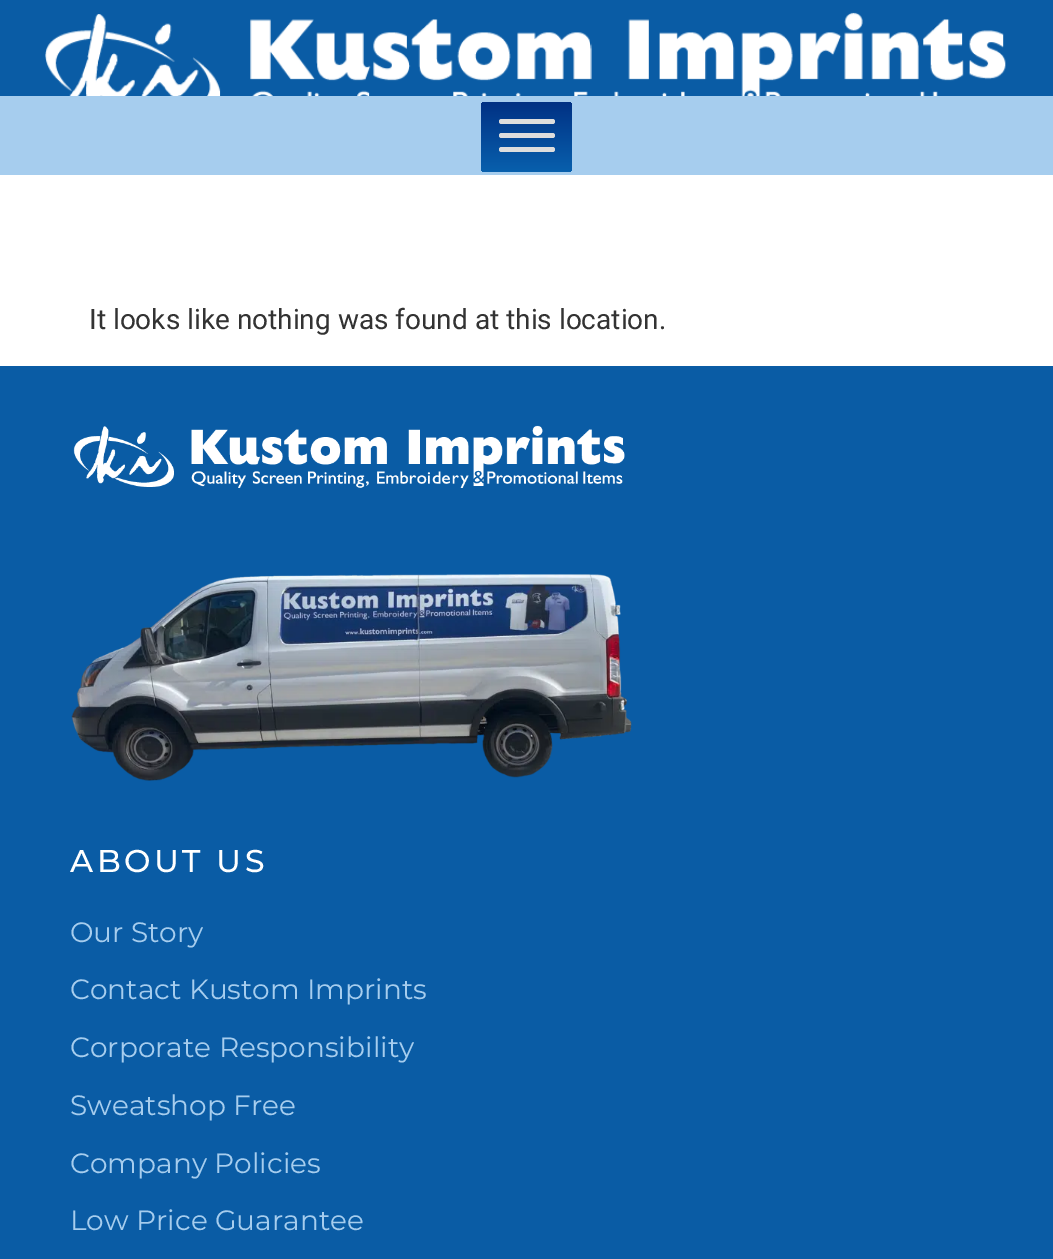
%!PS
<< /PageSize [1053 1259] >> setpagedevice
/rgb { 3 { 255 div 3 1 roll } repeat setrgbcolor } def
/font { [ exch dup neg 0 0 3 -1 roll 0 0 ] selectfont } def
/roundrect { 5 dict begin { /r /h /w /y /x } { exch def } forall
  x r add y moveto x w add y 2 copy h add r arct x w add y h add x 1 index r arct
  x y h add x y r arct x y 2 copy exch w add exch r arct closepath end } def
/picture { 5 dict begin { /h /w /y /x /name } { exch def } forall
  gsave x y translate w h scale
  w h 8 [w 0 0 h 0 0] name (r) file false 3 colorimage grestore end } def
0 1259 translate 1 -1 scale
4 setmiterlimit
255 255 255 rgb
0 0 1053 1259 rectfill
10 92 165 rgb
0 0 1053 96 rectfill
(img/1.rgb) 45 12 961 84 picture
166 205 238 rgb
0 96 1053 79 rectfill
gsave 481 102 91 70 4 roundrect clip newpath
<< /ShadingType 2 /ColorSpace /DeviceRGB /Coords [527 102 527 172] /Extend [true true] /Function << /FunctionType 2 /Domain [0 1] /C0 [0.004 0.192 0.518] /C1 [0.031 0.376 0.678] /N 1 >> >> shfill grestore
221 221 221 rgb
499 119 56 5 2.5 roundrect fill
499 133 56 5 2.5 roundrect fill
499 147 56 5 2.5 roundrect fill
10 92 165 rgb
0 366 1053 893 rectfill
(img/2.rgb) 73 425 552 63 picture
(img/3.rgb) 71 574 561 207 picture
/Roboto-Regular 28 font
51 51 51 rgb
89 329 moveto (It looks like nothing was found at this location.) show
/Montserrat-Medium 31.5 font
255 255 255 rgb
70 872 moveto 3.5 0 (ABOUT US) ashow
/Montserrat-Regular 28 font
166 205 238 rgb
[
  [(Our Story) 70 942]
  [(Contact Kustom Imprints) 70 999]
  [(Corporate Responsibility) 70 1057]
  [(Sweatshop Free) 70 1115]
  [(Company Policies) 70 1173]
  [(Low Price Guarantee) 70 1230]
] { aload pop moveto show } forall
showpage
